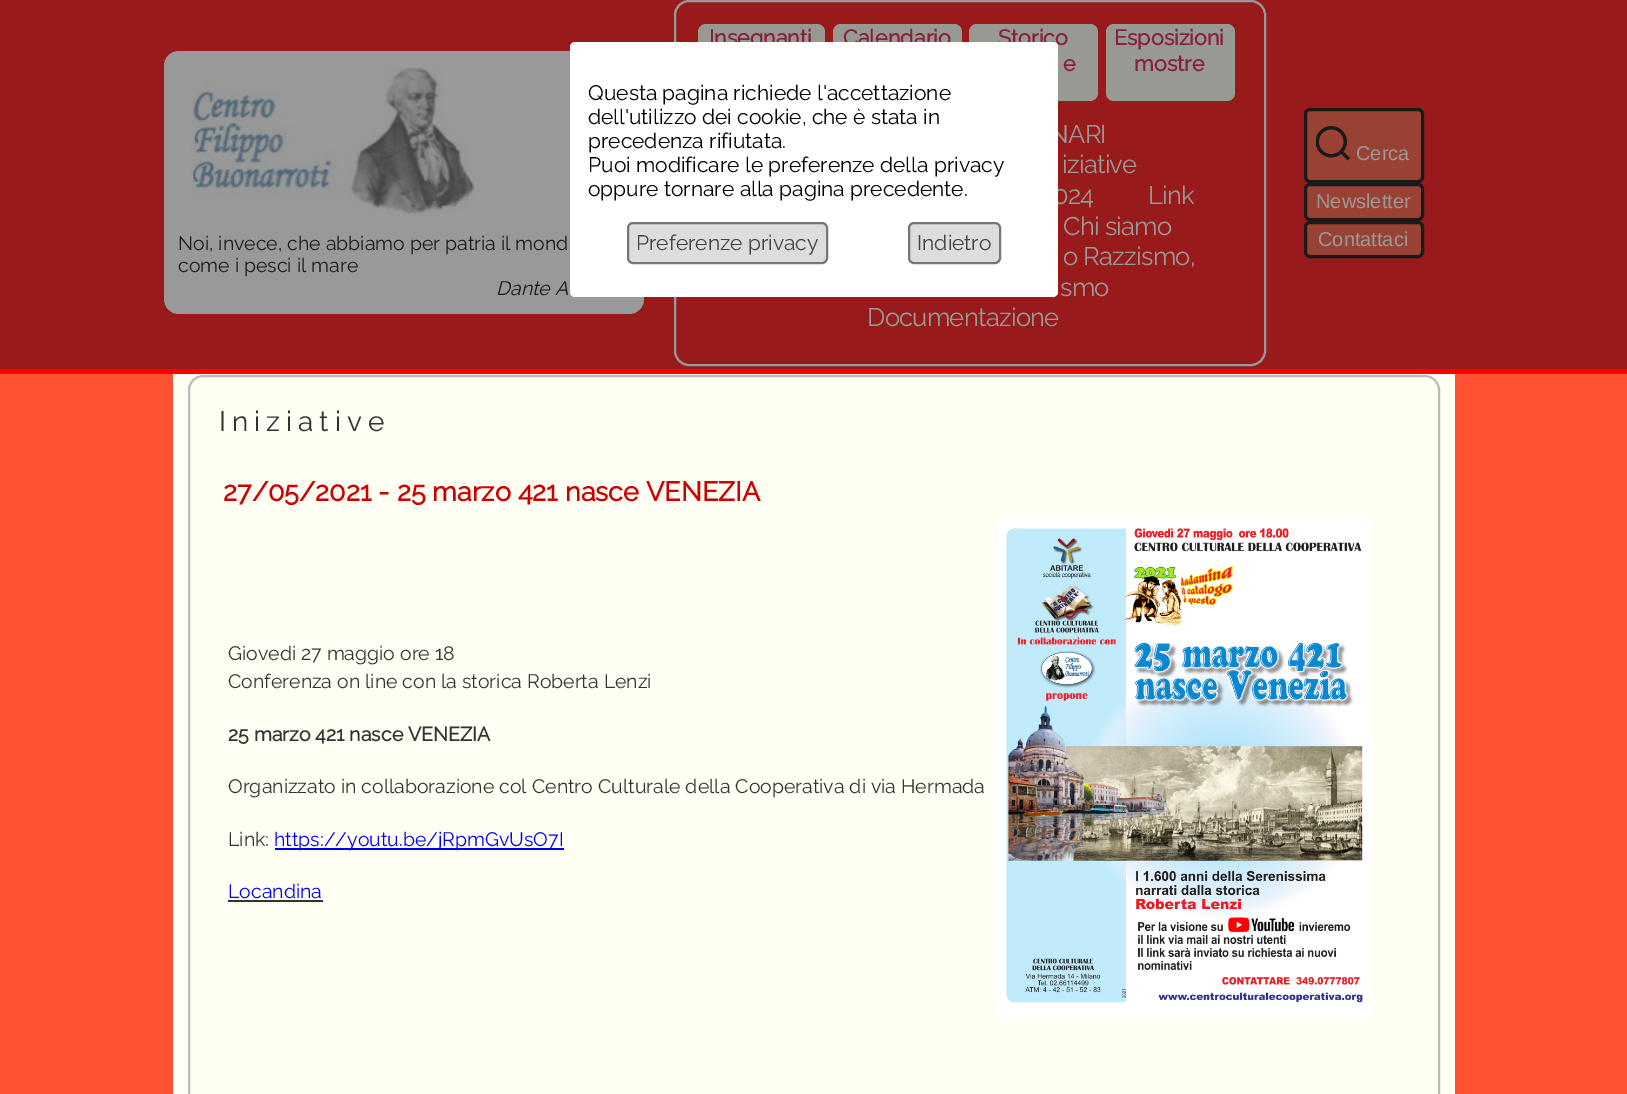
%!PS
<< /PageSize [1627 1094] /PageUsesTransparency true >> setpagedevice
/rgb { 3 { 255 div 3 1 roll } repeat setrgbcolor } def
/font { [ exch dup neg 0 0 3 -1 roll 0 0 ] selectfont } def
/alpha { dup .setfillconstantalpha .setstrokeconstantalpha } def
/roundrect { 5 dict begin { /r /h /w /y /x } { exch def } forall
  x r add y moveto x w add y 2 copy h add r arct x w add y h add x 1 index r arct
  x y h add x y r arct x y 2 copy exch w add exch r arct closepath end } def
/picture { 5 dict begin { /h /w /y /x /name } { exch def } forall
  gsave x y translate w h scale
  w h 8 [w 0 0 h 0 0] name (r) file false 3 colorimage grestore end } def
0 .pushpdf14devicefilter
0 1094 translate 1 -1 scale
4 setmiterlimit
255 82 50 rgb
0 0 1627 1094 rectfill
255 0 0 rgb
0 0 1627 374 rectfill
255 255 255 rgb
2 setlinewidth
675 1 590 364 14 roundrect stroke
255 255 244 rgb
698 24 127 77 8 roundrect fill
833 24 129 77 8 roundrect fill
969 24 129 77 8 roundrect fill
1106 24 129 77 8 roundrect fill
255 82 50 rgb
1305.5 109.5 117 72 4.5 roundrect gsave fill grestore
0 0 0 rgb
3 setlinewidth
stroke
(img/1.rgb) 1316 126 34 35 picture
255 82 50 rgb
1305.5 184.5 117 35 4.5 roundrect gsave fill grestore
0 0 0 rgb
stroke
255 82 50 rgb
1305.5 222.5 117 34 4.5 roundrect gsave fill grestore
0 0 0 rgb
stroke
255 255 255 rgb
164 51 480 263 15 roundrect fill
(img/2.rgb) 190 66 285 150 picture
255 255 244 rgb
173 374 1282 720 rectfill
187 187 187 rgb
2 setlinewidth
189 376 1250 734 14 roundrect stroke
0 0 238 rgb
275 848 289 2 rectfill
51 51 51 rgb
228 900 95 2 rectfill
(img/3.rgb) 996 517 375 502 picture
/Raleway-Bold 21.5 font
221 12 68 rgb
[
  [(Insegnanti) 709 45]
  [(Calendario) 843 45]
  [(Storico) 998 45]
  [(e) 1063 71]
  [(Esposizioni) 1114 45]
  [(mostre) 1134 71]
] { aload pop moveto show } forall
/Raleway-Thin 25.5 font
255 255 255 rgb
1049 143 moveto -0.7 0 (NARI) ashow
1062 173 moveto -0.7 0 (iziative) ashow
1053 204 moveto -0.7 0 (024) ashow
1148 204 moveto -0.7 0 (Link) ashow
1063 235 moveto -0.7 0 (Chi siamo) ashow
1063 265 moveto -0.7 0 (o Razzismo,) ashow
1060 296 moveto -0.7 0 (smo) ashow
867 326 moveto -0.7 0 (Documentazione) ashow
/LiberationSans-Regular 20 font
[
  [(Cerca) 1356 160]
  [(Newsletter) 1316 208]
  [(Contattaci) 1318 246]
] { aload pop moveto show } forall
/Raleway-Thin 19.5 font
0 0 0 rgb
178 250 moveto (Noi, invece, che abbiamo per patria il mond) show
178 272 moveto (come i pesci il mare) show
/Raleway-ThinItalic 19.5 font
496 295 moveto (Dante A) show
0.5 alpha
51 51 51 rgb
0 0 1627 369 rectfill
1 alpha
255 255 255 rgb
570 42 488 255 5 roundrect fill
221 221 221 rgb
909 223 91 40 5 roundrect gsave fill grestore
119 119 119 rgb
stroke
/Raleway-Thin 21 font
68 68 68 rgb
917 250 moveto (Indietro) show
221 221 221 rgb
628 223 199 40 5 roundrect gsave fill grestore
119 119 119 rgb
stroke
68 68 68 rgb
636 250 moveto (Preferenze privacy) show
0 0 0 rgb
[
  [(oppure tornare alla pagina precedente.) 588 196]
  [(Puoi modificare le preferenze della privacy) 588 172]
  [(precedenza rifiutata.) 588 148]
  [(dell'utilizzo dei cookie, che è stata in) 588 124]
  [(Questa pagina richiede l'accettazione) 588 100]
] { aload pop moveto show } forall
/Raleway-Thin 28 font
51 51 51 rgb
219 431 moveto 6 0 (Iniziative) ashow
/Raleway-Bold 27 font
204 0 0 rgb
223 501 moveto (27/05/2021 - 25 marzo 421 nasce VENEZIA) show
/Raleway-Thin 19.5 font
51 51 51 rgb
228 660 moveto (Giovedi 27 maggio ore 18) show
228 688 moveto (Conferenza on line con la storica Roberta Lenzi) show
/Raleway-Bold 19.5 font
228 741 moveto (25 marzo 421 nasce VENEZIA) show
/Raleway-Thin 19.5 font
228 793 moveto (Organizzato in collaborazione col Centro Culturale della Cooperativa di via Hermada) show
228 846 moveto (Link:) show
0 0 238 rgb
274 846 moveto (https://youtu.be/jRpmGvUsO7I) show
228 898 moveto (Locandina) show
.poppdf14devicefilter showpage
